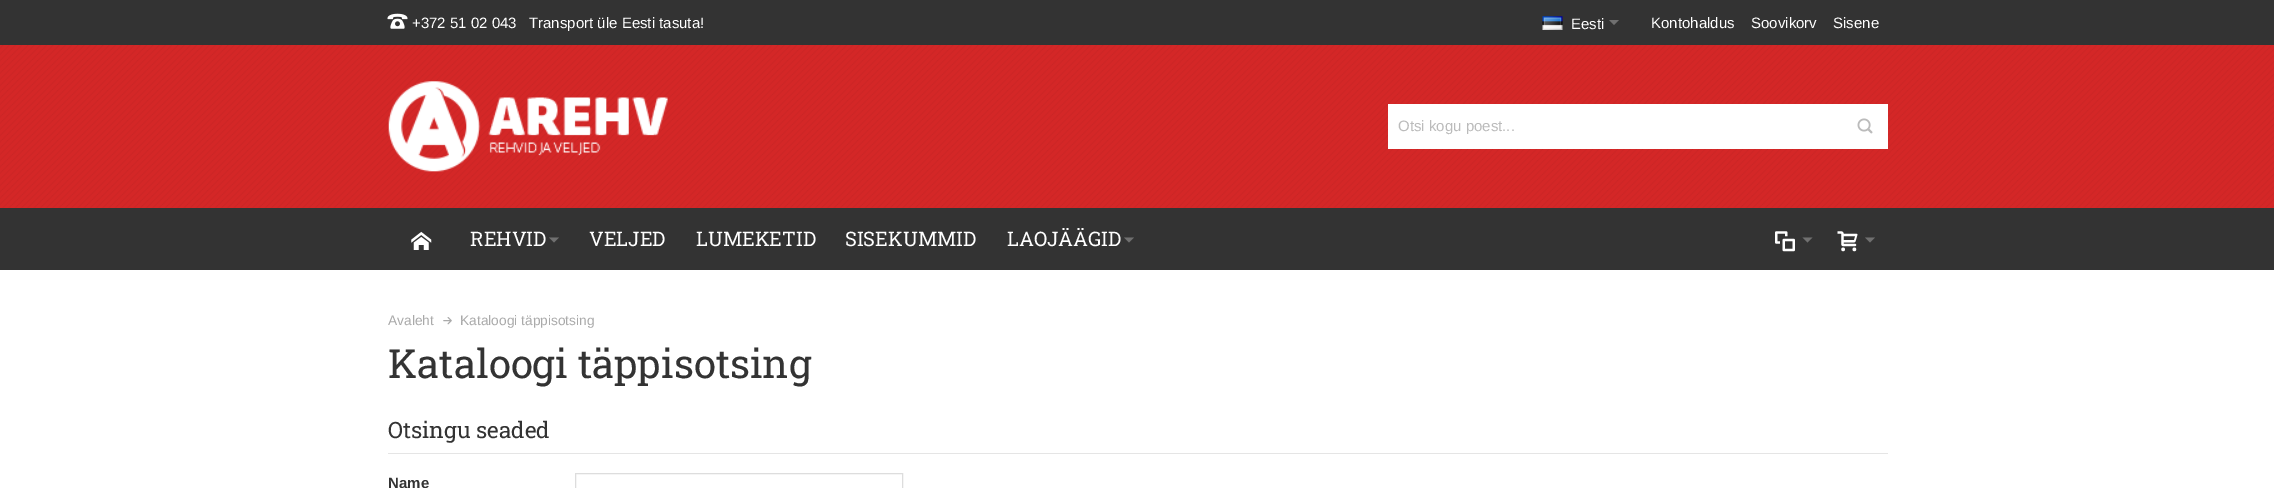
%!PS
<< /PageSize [2274 488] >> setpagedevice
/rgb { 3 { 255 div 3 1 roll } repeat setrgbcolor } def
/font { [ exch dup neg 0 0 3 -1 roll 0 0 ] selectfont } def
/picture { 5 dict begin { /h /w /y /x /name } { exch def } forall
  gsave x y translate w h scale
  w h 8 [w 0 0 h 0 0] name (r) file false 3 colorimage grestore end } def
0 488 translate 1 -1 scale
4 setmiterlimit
255 255 255 rgb
0 0 2274 488 rectfill
212 39 39 rgb
0 45 2274 163 rectfill
(img/1.rgb) 0 45 2274 163 picture
51 51 51 rgb
0 0 2274 45 rectfill
(img/2.rgb) 387 13 21 16 picture
(img/3.rgb) 1542 16 21 14 picture
112 112 112 rgb
1609 20 moveto 1619 20 lineto 1614 25 lineto closepath fill
(img/4.rgb) 388 81 280 91 picture
255 255 255 rgb
1388 104 500 45 rectfill
(img/5.rgb) 1857 118 16 16 picture
51 51 51 rgb
0 208 2274 62 rectfill
(img/6.rgb) 411 231 21 19 picture
112 112 112 rgb
549 237.5 moveto 559 237.5 lineto 554 242.5 lineto closepath fill
1124 237.5 moveto 1134 237.5 lineto 1129 242.5 lineto closepath fill
(img/7.rgb) 1775 231 20 21 picture
1802.5 237.5 moveto 1812.5 237.5 lineto 1807.5 242.5 lineto closepath fill
(img/8.rgb) 1837 231 21 21 picture
1865 237.5 moveto 1875 237.5 lineto 1870 242.5 lineto closepath fill
(img/9.rgb) 443 317 9 8 picture
229 229 229 rgb
388 453 1500 1 rectfill
221 221 221 rgb
575.5 473.5 327 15 rectstroke
/LiberationSans-Regular 15 font
255 255 255 rgb
[
  [(+372 51 02 043) 412 28]
  [(Transport üle Eesti tasuta!) 529 28]
  [(Eesti) 1571 29]
  [(Kontohaldus) 1651 28]
  [(Soovikorv) 1751 28]
  [(Sisene) 1833 28]
] { aload pop moveto show } forall
187 187 187 rgb
1398 131 moveto (Otsi kogu poest...) show
/RobotoSlab-Regular 20 font
255 255 255 rgb
[
  [(REHVID) 470 246]
  [(VELJED) 589 246]
  [(LUMEKETID) 696 246]
  [(SISEKUMMID) 845 246]
  [(LAOJÄÄGID) 1007 246]
] { aload pop moveto show } forall
/LiberationSans-Regular 13.75 font
170 170 170 rgb
388 325 moveto (Avaleht) show
460 325 moveto (Kataloogi täppisotsing) show
/RobotoSlab-Regular 40 font
51 51 51 rgb
388 378 moveto (Kataloogi täppisotsing) show
/RobotoSlab-Regular 22.5 font
388 438 moveto (Otsingu seaded) show
/LiberationSans-Bold 15 font
388 488 moveto (Name) show
showpage
